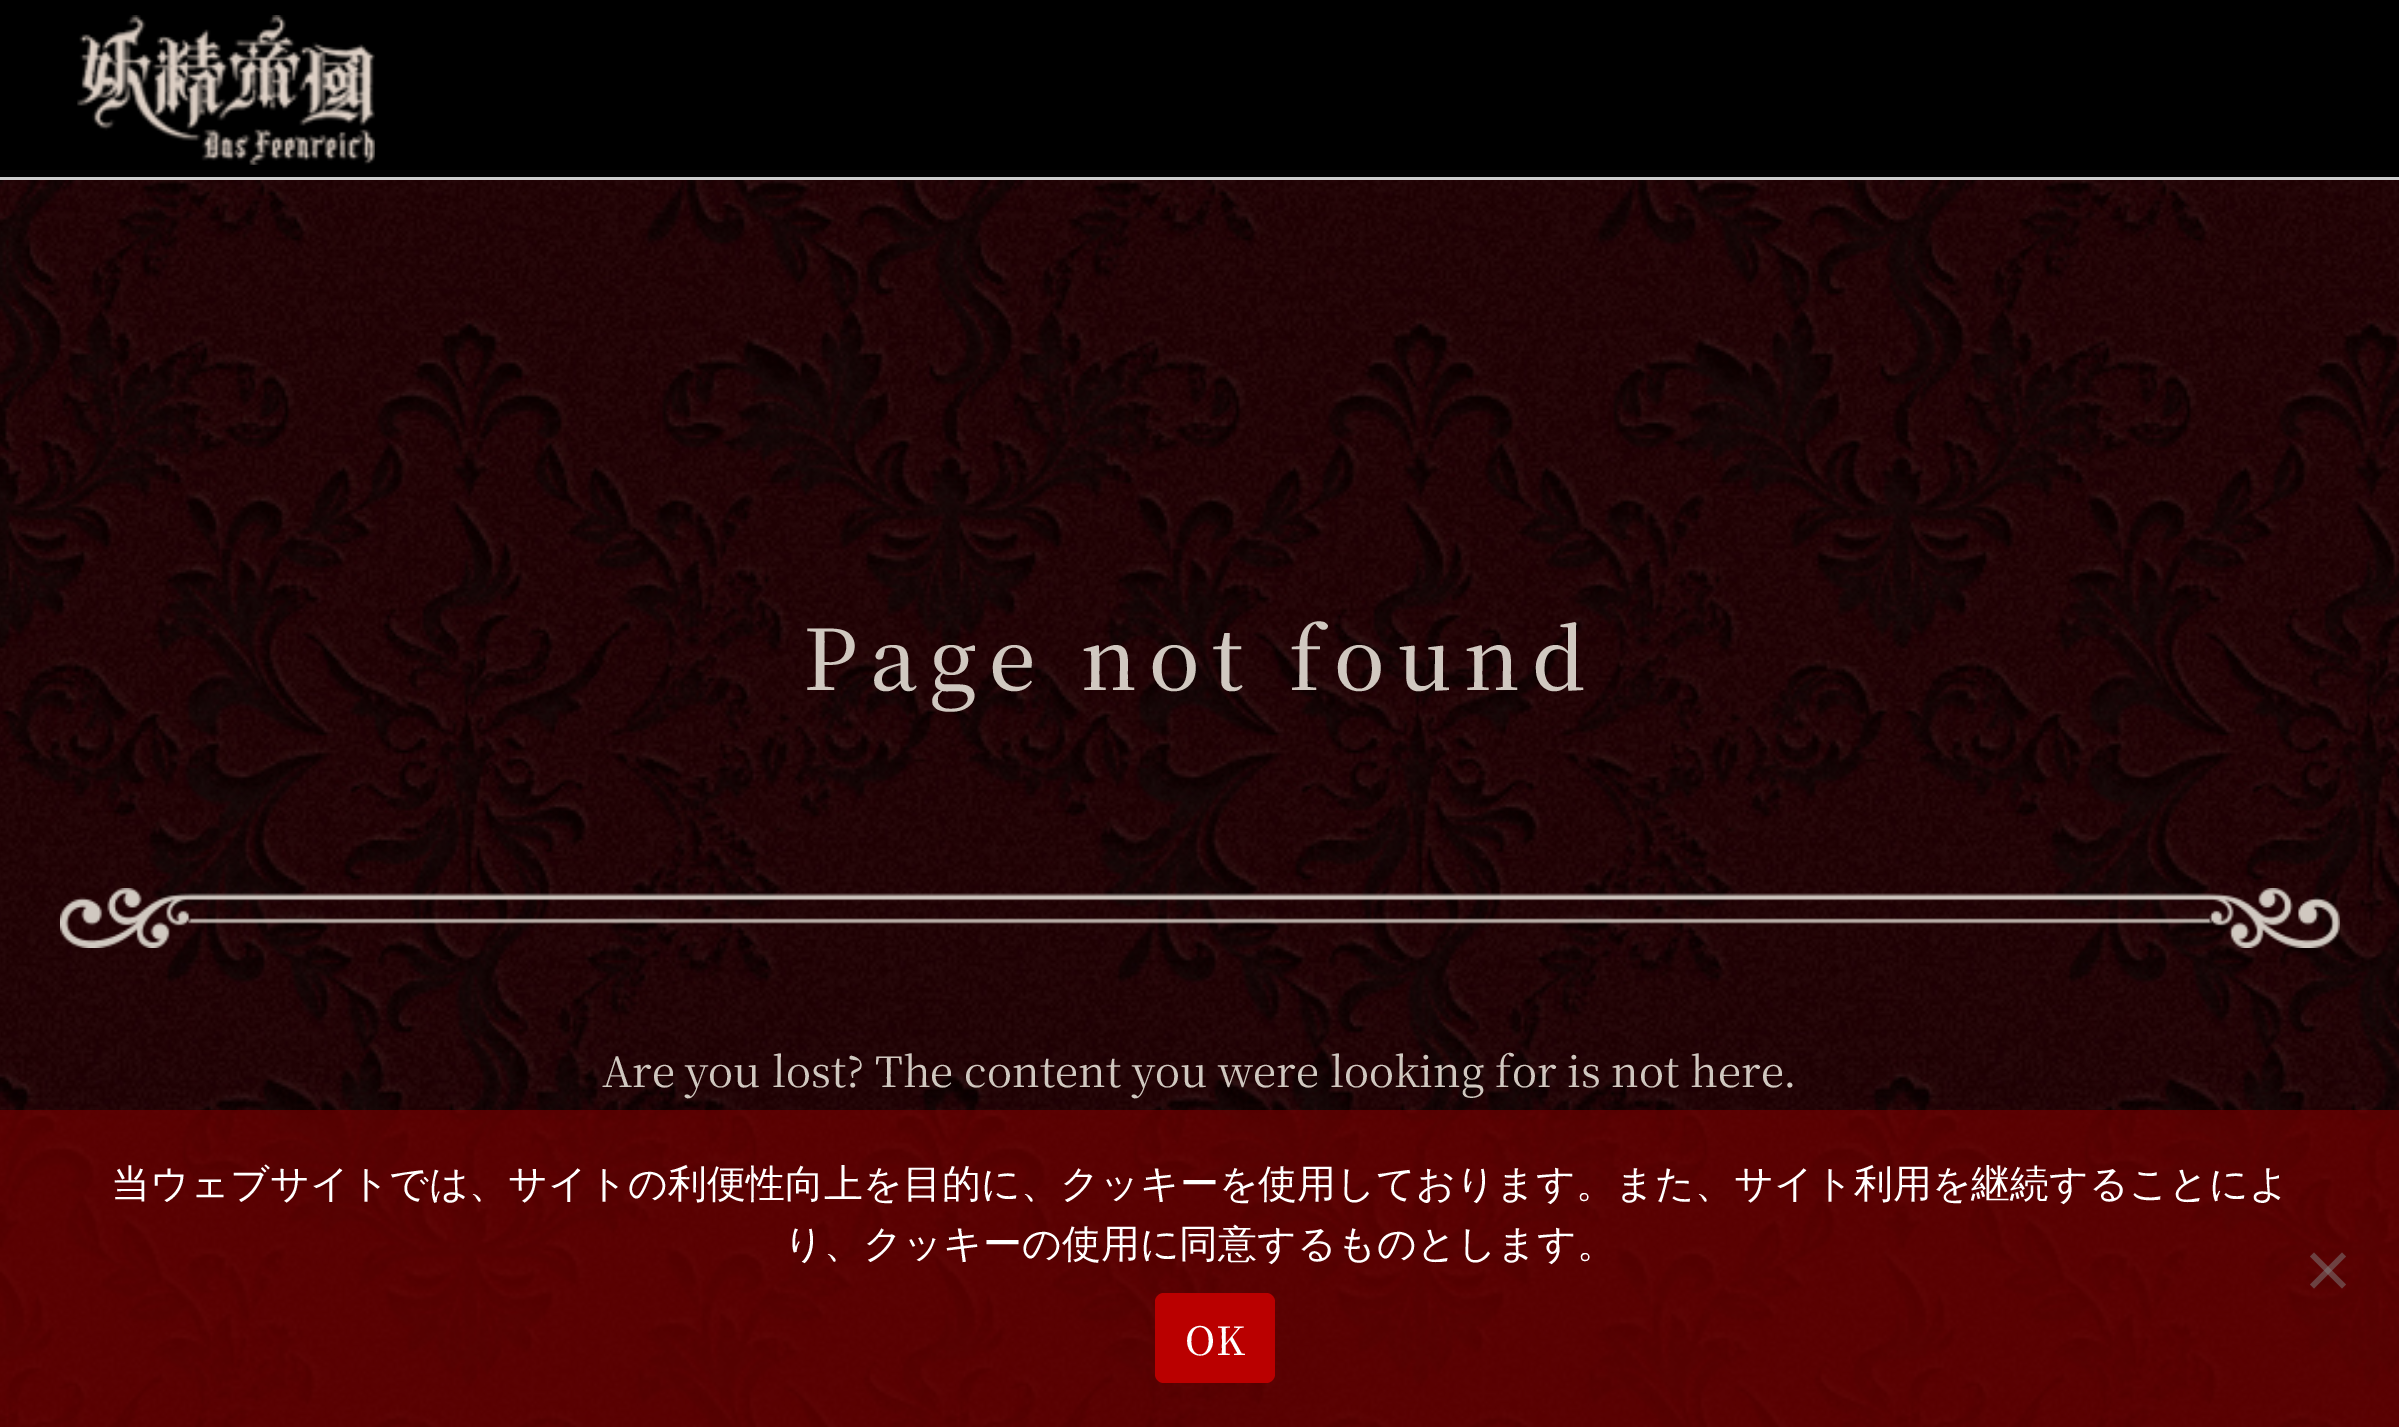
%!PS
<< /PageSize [2399 1427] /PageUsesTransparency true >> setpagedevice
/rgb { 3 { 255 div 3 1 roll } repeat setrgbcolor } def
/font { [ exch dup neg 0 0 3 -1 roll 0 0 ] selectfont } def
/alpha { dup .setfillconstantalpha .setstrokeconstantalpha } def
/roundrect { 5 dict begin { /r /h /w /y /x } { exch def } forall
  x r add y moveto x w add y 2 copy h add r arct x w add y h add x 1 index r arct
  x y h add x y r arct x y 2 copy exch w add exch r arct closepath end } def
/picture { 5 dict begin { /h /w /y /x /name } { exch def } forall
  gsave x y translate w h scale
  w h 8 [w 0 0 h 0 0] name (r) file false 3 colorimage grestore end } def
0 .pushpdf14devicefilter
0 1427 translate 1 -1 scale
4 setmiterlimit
255 255 255 rgb
0 0 2399 1427 rectfill
0 0 0 rgb
0 0 2399 177 rectfill
204 204 204 rgb
0 177 2399 3 rectfill
(img/1.rgb) 77 15 298 150 picture
(img/2.rgb) 0 180 2399 1247 picture
(img/3.rgb) 60 888 2280 60 picture
0.7 alpha
114 0 0 rgb
0 1110 2399 317 rectfill
0.5 alpha
128 128 128 rgb
2342 1252.5 moveto 2346 1256.5 lineto 2314 1288.5 lineto 2310 1284.5 lineto closepath fill
2310 1256.5 moveto 2314 1252.5 lineto 2346 1284.5 lineto 2342 1288.5 lineto closepath fill
1 alpha
186 0 0 rgb
1155 1293 120 90 9 roundrect fill
/NotoSerifJP-Medium 84 font
208 200 192 rgb
803 690 moveto 12 0 (Page not found) ashow
/NotoSerifJP-Regular 42 font
602 1087 moveto (Are you lost? The content you were looking for is not here.) show
/WenQuanYiZenHei-Medium 39 font
255 255 255 rgb
111 1197 moveto (当ウェブサイトでは、サイトの利便性向上を目的に、クッキーを使用しております。また、サイト利用を継続することによ) show
784 1257 moveto (り、クッキーの使用に同意するものとします。) show
/NotoSerifJP-Medium 39 font
1185 1355 moveto 1 0 (OK) ashow
.poppdf14devicefilter showpage
